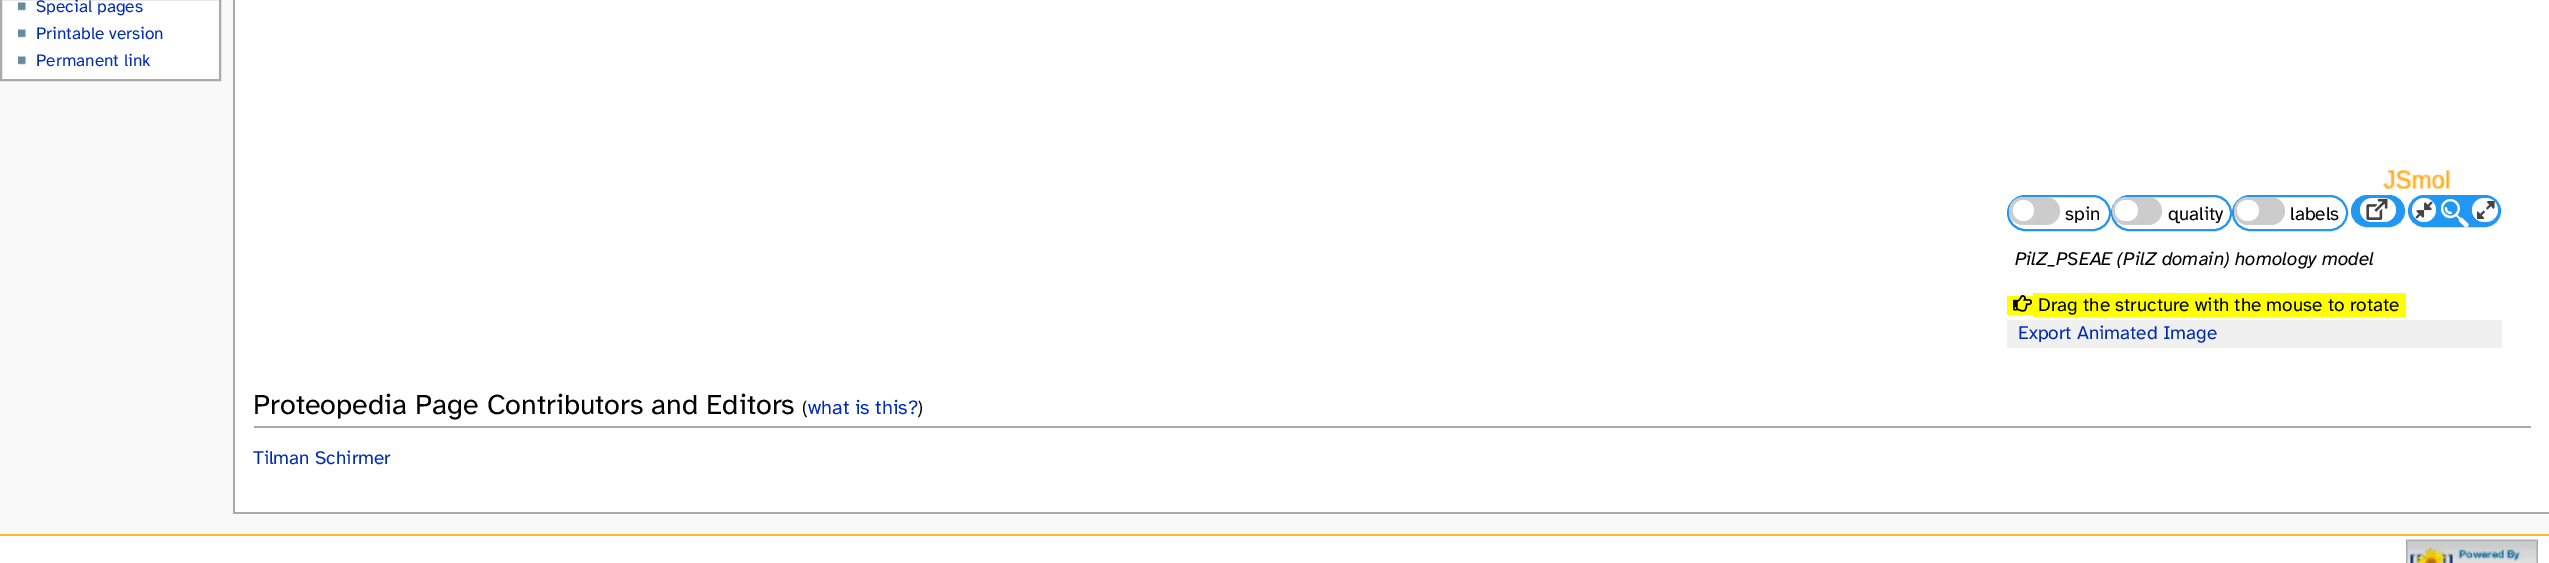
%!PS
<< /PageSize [2549 563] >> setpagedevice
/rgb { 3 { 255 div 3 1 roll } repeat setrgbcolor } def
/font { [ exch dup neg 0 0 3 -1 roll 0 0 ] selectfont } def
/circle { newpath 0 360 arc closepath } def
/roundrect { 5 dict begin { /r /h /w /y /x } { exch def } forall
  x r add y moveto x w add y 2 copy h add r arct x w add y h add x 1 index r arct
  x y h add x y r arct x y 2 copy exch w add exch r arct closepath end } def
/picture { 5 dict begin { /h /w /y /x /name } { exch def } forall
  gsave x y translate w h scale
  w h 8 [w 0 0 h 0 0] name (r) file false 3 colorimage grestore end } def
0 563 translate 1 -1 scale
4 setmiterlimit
249 249 249 rgb
0 0 2549 563 rectfill
255 255 255 rgb
1 -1 moveto 220 -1 lineto 220 80 lineto 1 80 lineto closepath gsave fill grestore
170 170 170 rgb
2 setlinewidth
stroke
(img/1.rgb) 18 2 8 9 picture
(img/1.rgb) 18 29 8 9 picture
(img/1.rgb) 18 56 8 9 picture
[
  [235 0 2314 512 255 255 255]
  [233 512 2316 2 170 170 170]
  [233 0 2 513 170 170 170]
] { aload pop rgb rectfill } forall
(img/2.rgb) 2383 170 67 19 picture
33 150 243 rgb
2008 196 102 34 17 roundrect stroke
204 204 204 rgb
2009 197 51 28 14 roundrect fill
255 255 255 rgb
2023.5 210.5 10.5 circle fill
33 150 243 rgb
2112 196 119 34 17 roundrect stroke
204 204 204 rgb
2112 197 50 28 14 roundrect fill
255 255 255 rgb
2115 200 23 21 10.5 roundrect fill
33 150 243 rgb
2233 196 114 34 17 roundrect stroke
204 204 204 rgb
2234 197 51 28 14 roundrect fill
255 255 255 rgb
2237 200 22 21 10.5 roundrect fill
33 150 243 rgb
2352 196 52 30 15 roundrect gsave fill grestore
stroke
255 255 255 rgb
2360 198 36 24 12 roundrect fill
(img/3.rgb) 2366 198 22 22 picture
33 150 243 rgb
2409 196 91 30 15 roundrect gsave fill grestore
stroke
255 255 255 rgb
2424 210 12 circle fill
(img/4.rgb) 2415 201 18 18 picture
(img/5.rgb) 2441 199 28 28 picture
2472 198 26 24 12 roundrect fill
(img/6.rgb) 2477 201 18 18 picture
255 255 0 rgb
2007 296 26 19 rectfill
2033 293 373 24 rectfill
(img/7.rgb) 2013 295 19 17 picture
[
  [2007 320 495 28 240 240 240]
  [254 426 2277 2 170 170 170]
  [0 536 2549 27 255 255 255]
  [0 534 2549 2 250 189 35]
] { aload pop rgb rectfill } forall
(img/8.rgb) 2406 539 132 24 picture
/AtkinsonHyperlegible-Regular 17.25 font
0 43 184 rgb
[
  [(Special pages) 36 12]
  [(Printable version) 36 39]
  [(Permanent link) 36 66]
] { aload pop moveto show } forall
/AtkinsonHyperlegible-Regular 19 font
0 0 0 rgb
[
  [(spin) 2065 220]
  [(quality) 2168 220]
  [(labels) 2290 220]
] { aload pop moveto show } forall
/AtkinsonHyperlegible-Italic 19 font
2015 265 moveto (PilZ_PSEAE \(PilZ domain\) homology model) show
/AtkinsonHyperlegible-Regular 19 font
2038 311 moveto (Drag the structure with the mouse to rotate) show
0 43 184 rgb
2018 339 moveto (Export Animated Image) show
/AtkinsonHyperlegible-Regular 28.6 font
0 0 0 rgb
253 414 moveto (Proteopedia Page Contributors and Editors) show
/AtkinsonHyperlegible-Regular 20 font
802 414 moveto (\() show
0 43 184 rgb
808 414 moveto (what is this?) show
0 0 0 rgb
917 414 moveto (\)) show
/AtkinsonHyperlegible-Regular 19 font
0 43 184 rgb
253 464 moveto (Tilman Schirmer) show
showpage
